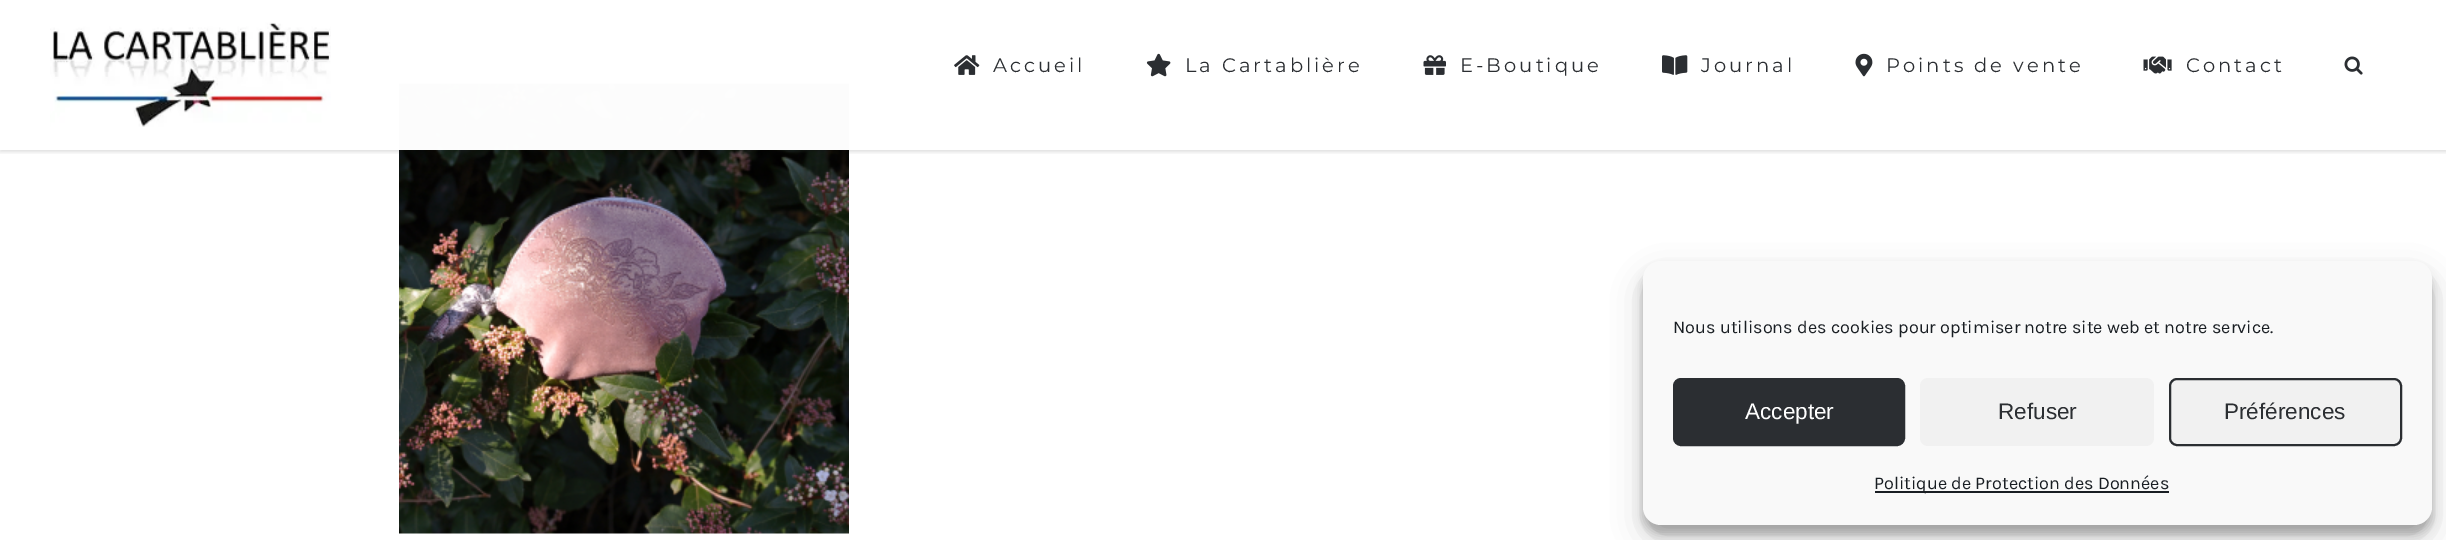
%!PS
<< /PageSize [2446 540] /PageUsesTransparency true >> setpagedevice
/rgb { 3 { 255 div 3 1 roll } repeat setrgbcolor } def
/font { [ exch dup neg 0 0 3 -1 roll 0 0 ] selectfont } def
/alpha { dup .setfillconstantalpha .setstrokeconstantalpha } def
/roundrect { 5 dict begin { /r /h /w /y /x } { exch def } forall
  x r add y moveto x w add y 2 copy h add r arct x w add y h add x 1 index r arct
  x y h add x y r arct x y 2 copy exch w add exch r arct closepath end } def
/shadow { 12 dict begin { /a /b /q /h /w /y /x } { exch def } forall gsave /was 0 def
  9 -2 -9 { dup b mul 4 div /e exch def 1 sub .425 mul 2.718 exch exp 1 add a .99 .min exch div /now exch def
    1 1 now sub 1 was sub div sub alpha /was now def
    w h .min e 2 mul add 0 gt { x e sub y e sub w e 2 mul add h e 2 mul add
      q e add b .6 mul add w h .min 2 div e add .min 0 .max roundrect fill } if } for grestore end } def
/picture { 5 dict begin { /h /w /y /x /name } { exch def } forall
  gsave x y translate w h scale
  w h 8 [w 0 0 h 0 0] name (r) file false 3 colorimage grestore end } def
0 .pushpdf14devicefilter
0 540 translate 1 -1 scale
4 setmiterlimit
255 255 255 rgb
0 0 2446 540 rectfill
(img/9.rgb) 399 83 450 451 picture
gsave
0 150 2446 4 rectclip
0 0 0 rgb
0 2 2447 150 0 2 0.12 shadow
grestore
0.99 alpha
399 83 450 67 rectfill
1 alpha
(img/1.rgb) 50 22 281 105 picture
(img/2.rgb) 954 55 26 20 picture
(img/3.rgb) 1146 53 25 24 picture
(img/4.rgb) 1423 55 23 20 picture
(img/5.rgb) 1662 55 26 20 picture
(img/6.rgb) 1855 53 18 24 picture
(img/7.rgb) 2143 56 29 18 picture
(img/8.rgb) 2344 56 19 19 picture
0 0 0 rgb
1643 270 789 264 18 4.5 0.23 shadow
1643 276 789 264 18 15 0.19 shadow
249 249 249 rgb
1643 261 789 264 18 roundrect fill
43 46 50 rgb
1674 379 230 66 7 roundrect gsave fill grestore
2 setlinewidth
stroke
241 241 241 rgb
1920 378 234 68 8 roundrect fill
2170 379 231 66 7 roundrect gsave fill grestore
43 46 50 rgb
stroke
25 30 35 rgb
1875 491 294 2 rectfill
/Montserrat-Regular 19.5 font
43 46 50 rgb
993 72 moveto 3 0 (Accueil) ashow
1185 72 moveto 3 0 (La Cartablière) ashow
1460 72 moveto 3 0 (E-Boutique) ashow
1701 72 moveto 3 0 (Journal) ashow
1886 72 moveto 3 0 (Points de vente) ashow
2186 72 moveto 3 0 (Contact) ashow
/Karla-Regular 18 font
25 30 35 rgb
1673 333 moveto (Nous utilisons des cookies pour optimiser notre site web et notre service.) show
/LiberationSans-Regular 22.5 font
255 255 255 rgb
1745 419 moveto (Accepter) show
43 46 50 rgb
1998 419 moveto (Refuser) show
2224 419 moveto (Préférences) show
/Karla-Regular 18 font
25 30 35 rgb
1874 489 moveto (Politique de Protection des Données) show
.poppdf14devicefilter showpage
